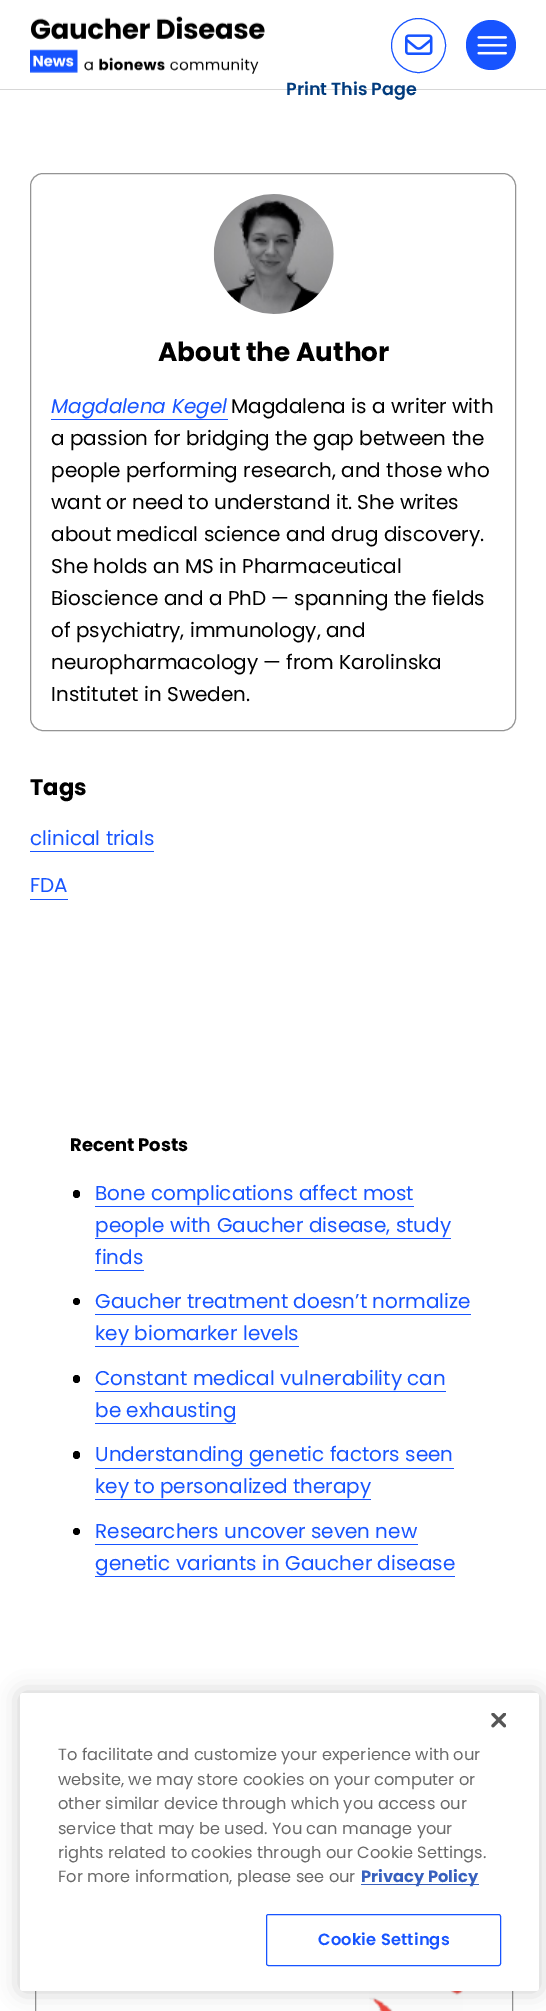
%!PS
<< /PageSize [546 2011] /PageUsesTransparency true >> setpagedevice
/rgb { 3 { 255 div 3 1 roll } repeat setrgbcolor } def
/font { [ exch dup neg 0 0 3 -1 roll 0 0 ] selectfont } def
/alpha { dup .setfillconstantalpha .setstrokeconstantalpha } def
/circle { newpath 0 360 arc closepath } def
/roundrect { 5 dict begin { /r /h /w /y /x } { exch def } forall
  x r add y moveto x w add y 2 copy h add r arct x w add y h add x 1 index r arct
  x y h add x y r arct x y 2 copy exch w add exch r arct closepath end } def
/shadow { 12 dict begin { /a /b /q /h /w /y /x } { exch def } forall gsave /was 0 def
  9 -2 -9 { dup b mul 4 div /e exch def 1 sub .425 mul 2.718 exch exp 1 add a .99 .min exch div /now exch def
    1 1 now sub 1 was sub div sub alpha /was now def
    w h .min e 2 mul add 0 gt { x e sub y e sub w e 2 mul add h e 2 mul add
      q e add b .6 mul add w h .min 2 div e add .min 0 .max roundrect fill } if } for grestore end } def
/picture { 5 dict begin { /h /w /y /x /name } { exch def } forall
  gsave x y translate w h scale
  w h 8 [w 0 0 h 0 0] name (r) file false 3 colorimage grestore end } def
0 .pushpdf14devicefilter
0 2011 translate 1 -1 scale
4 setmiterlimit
255 255 255 rgb
0 0 546 2011 rectfill
215 215 215 rgb
0 89 546 1 rectfill
(img/1.rgb) 30 16 235 58 picture
23 84 255 rgb
418.5 45.5 27 circle stroke
(img/2.rgb) 405 34 28 21 picture
491 45 25 circle fill
(img/3.rgb) 477 36 30 19 picture
148 148 148 rgb
30.5 173.5 485 557 12.5 roundrect stroke
(img/4.rgb) 213 194 121 120 picture
[
  [51 419 177 1 23 84 255]
  [30 851 124 1 23 84 255]
  [30 899 38 1 23 84 255]
] { aload pop rgb rectfill } forall
0 0 0 rgb
73 1190 7 8 3.5 roundrect fill
[
  [95 1206 319 1 23 84 255]
  [95 1238 356 1 23 84 255]
  [95 1270 49 1 23 84 255]
] { aload pop rgb rectfill } forall
0 0 0 rgb
76.5 1301.5 3.5 circle fill
23 84 255 rgb
95 1314 376 1 rectfill
95 1346 204 1 rectfill
0 0 0 rgb
73 1375 7 8 3.5 roundrect fill
23 84 255 rgb
95 1391 351 1 rectfill
95 1423 141 1 rectfill
0 0 0 rgb
73 1451 7 8 3.5 roundrect fill
23 84 255 rgb
95 1468 359 1 rectfill
95 1499 276 1 rectfill
0 0 0 rgb
76.5 1531.5 3.5 circle fill
23 84 255 rgb
95 1544 323 1 rectfill
95 1576 360 1 rectfill
148 148 148 rgb
35.5 1934.5 477 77 rectstroke
(img/5.rgb) 369 1991 94 20 picture
0 0 0 rgb
20 1693 519 298 3 11 0.2 shadow
255 255 255 rgb
20 1693 519 298 3 roundrect fill
(img/6.rgb) 491 1713 15 15 picture
56 96 190 rgb
361 1884 118 1 rectfill
23 84 255 rgb
266.5 1914.5 234 51 2 roundrect stroke
/Poppins-SemiBold 17.5 font
1 59 125 rgb
286 95 moveto (Print This Page) show
/Poppins-Bold 26.25 font
0 0 0 rgb
158 361 moveto (About the Author) show
/Poppins-Italic 20 font
23 84 255 rgb
51 413 moveto (Magdalena Kegel) show
/Poppins-Regular 20 font
0 0 0 rgb
[
  [(Magdalena is a writer with) 231 413]
  [(a passion for bridging the gap between the) 51 445]
  [(people performing research, and those who) 51 477]
  [(want or need to understand it. She writes) 51 509]
  [(about medical science and drug discovery.) 51 541]
  [(She holds an MS in Pharmaceutical) 51 573]
  [(Bioscience and a PhD — spanning the fields) 51 605]
  [(of psychiatry, immunology, and) 51 637]
  [(neuropharmacology — from Karolinska) 51 669]
  [(Institutet in Sweden.) 51 701]
] { aload pop moveto show } forall
/Poppins-Bold 22.5 font
30 795 moveto (Tags) show
/Poppins-Regular 20 font
23 84 255 rgb
30 845 moveto (clinical trials) show
30 892 moveto (FDA) show
/Poppins-Bold 18 font
0 0 0 rgb
70 1151 moveto (Recent Posts) show
/Poppins-Regular 20 font
23 84 255 rgb
[
  [(Bone complications affect most) 95 1200]
  [(people with Gaucher disease, study) 95 1232]
  [(finds) 95 1264]
  [(Gaucher treatment doesn’t normalize) 95 1308]
  [(key biomarker levels) 95 1340]
  [(Constant medical vulnerability can) 95 1385]
  [(be exhausting) 95 1417]
  [(Understanding genetic factors seen) 95 1461]
  [(key to personalized therapy) 95 1493]
  [(Researchers uncover seven new) 95 1538]
  [(genetic variants in Gaucher disease) 95 1570]
] { aload pop moveto show } forall
/Poppins-Regular 16.25 font
105 105 105 rgb
[
  [(To facilitate and customize your experience with our) 58 1760]
  [(website, we may store cookies on your computer or) 58 1785]
  [(other similar device through which you access our) 58 1809]
  [(service that may be used. You can manage your) 58 1834]
  [(rights related to cookies through our Cookie Settings.) 58 1858]
  [(For more information, please see our) 58 1882]
] { aload pop moveto show } forall
/Poppins-Bold 16.25 font
56 96 190 rgb
361 1882 moveto (Privacy Policy) show
/Poppins-SemiBold 16.25 font
23 84 255 rgb
318 1945 moveto 0.2 0 (Cookie Settings) ashow
.poppdf14devicefilter showpage
